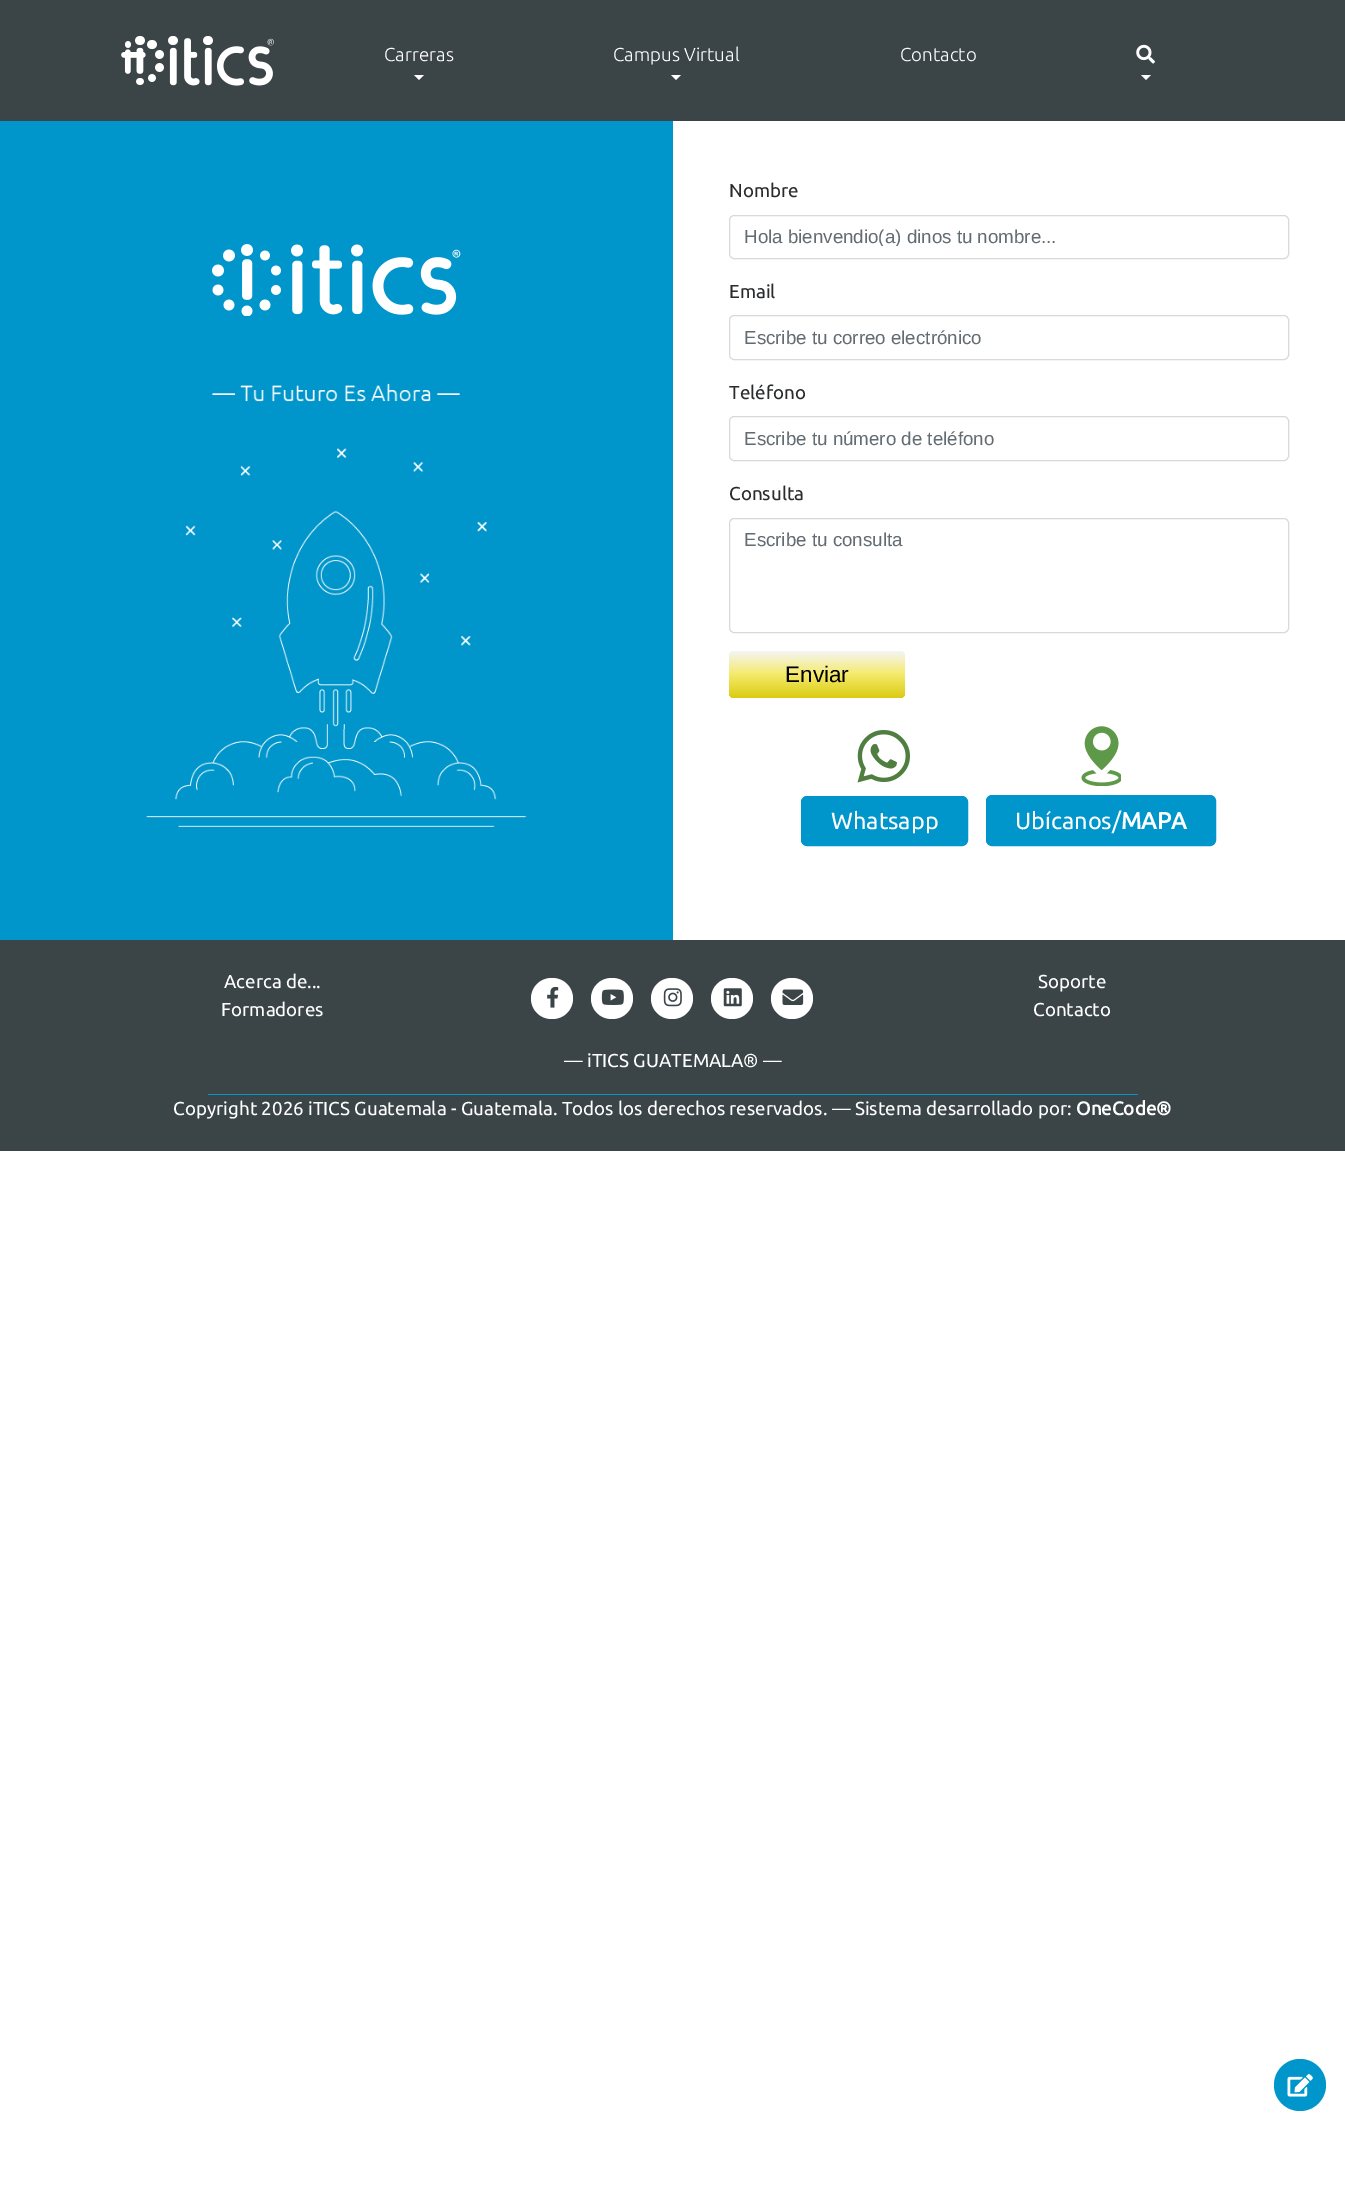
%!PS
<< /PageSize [1345 2205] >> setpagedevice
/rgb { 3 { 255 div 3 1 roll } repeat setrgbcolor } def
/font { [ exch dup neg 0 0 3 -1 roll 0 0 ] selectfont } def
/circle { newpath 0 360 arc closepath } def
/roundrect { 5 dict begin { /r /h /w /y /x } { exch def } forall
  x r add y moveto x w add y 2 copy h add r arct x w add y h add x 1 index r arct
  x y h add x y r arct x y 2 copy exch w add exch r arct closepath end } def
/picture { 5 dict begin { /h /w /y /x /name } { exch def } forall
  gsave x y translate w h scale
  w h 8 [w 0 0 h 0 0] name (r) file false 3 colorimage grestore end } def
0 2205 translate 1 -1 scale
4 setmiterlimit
255 255 255 rgb
0 0 1345 2205 rectfill
59 68 70 rgb
0 0 1345 121 rectfill
(img/1.rgb) 121 36 153 50 picture
255 255 255 rgb
414 75 moveto 424 75 lineto 419 80 lineto closepath fill
671 75 moveto 681 75 lineto 676 80 lineto closepath fill
(img/2.rgb) 1136 44 19 20 picture
1141 75 moveto 1151 75 lineto 1146 80 lineto closepath fill
0 150 203 rgb
0 121 673 819 rectfill
(img/3.rgb) 212 244 249 72 picture
(img/4.rgb) 146 383 381 444 picture
217 217 217 rgb
729.5 215.5 559 43 4.5 roundrect stroke
729.5 315.5 559 44 4.5 roundrect stroke
729.5 416.5 559 44 4.5 roundrect stroke
729.5 518.5 559 114 4.5 roundrect stroke
gsave 729 651 176 47 5 roundrect clip newpath
<< /ShadingType 2 /ColorSpace /DeviceRGB /Coords [817 651 817 698] /Extend [true true] /Function << /FunctionType 3 /Domain [0 1] /Functions [<< /FunctionType 2 /Domain [0 1] /C0 [0.961 0.961 0.961] /C1 [0.957 0.918 0.416] /N 1 >> << /FunctionType 2 /Domain [0 1] /C0 [0.957 0.918 0.416] /C1 [0.859 0.796 0.071] /N 1 >>] /Bounds [0.5] /Encode [0 1 0 1] >> >> shfill grestore
(img/5.rgb) 857 730 53 53 picture
0 150 203 rgb
801.5 796.5 166 49 5.5 roundrect gsave fill grestore
stroke
(img/6.rgb) 1081 726 40 60 picture
986.5 795.5 229 50 5.5 roundrect gsave fill grestore
stroke
59 68 70 rgb
0 940 1345 211 rectfill
255 255 255 rgb
531 978 42 41 20.5 roundrect fill
(img/7.rgb) 547 986 12 22 picture
591 978 42 41 20.5 roundrect fill
(img/8.rgb) 601 989 23 16 picture
651 978 42 41 20.5 roundrect fill
(img/9.rgb) 663 988 19 19 picture
711 978 42 41 20.5 roundrect fill
(img/10.rgb) 723 988 19 19 picture
771 978 42 41 20.5 roundrect fill
(img/11.rgb) 782 989 22 16 picture
0 150 203 rgb
208 1094 930 1 rectfill
1300 2085 26 circle fill
(img/12.rgb) 1287 2074 26 23 picture
/Ubuntu-Light 18.75 font
255 255 255 rgb
[
  [(Carreras) 384 61]
  [(Campus Virtual) 613 61]
  [(Contacto) 900 61]
] { aload pop moveto show } forall
/Ubuntu-Regular 18.75 font
41 43 44 rgb
729 197 moveto (Nombre) show
gsave
744 225 530 21 rectclip
/LiberationSans-Regular 18.75 font
99 108 114 rgb
744 243 moveto (Hola bienvendio\(a\) dinos tu nombre...) show
grestore
729 298 moveto (Email) show
/LiberationSans-Regular 18.75 font
99 108 114 rgb
744 344 moveto (Escribe tu correo electrónico) show
/Ubuntu-Regular 18.75 font
41 43 44 rgb
729 399 moveto (Teléfono) show
/LiberationSans-Regular 18.75 font
99 108 114 rgb
744 445 moveto (Escribe tu número de teléfono) show
/Ubuntu-Regular 18.75 font
41 43 44 rgb
729 500 moveto (Consulta) show
/LiberationSans-Regular 18.75 font
99 108 114 rgb
744 546 moveto (Escribe tu consulta) show
/LiberationSans-Regular 22.5 font
0 0 0 rgb
785 682 moveto (Enviar) show
/Ubuntu-Regular 23.5 font
255 255 255 rgb
831 829 moveto (Whatsapp) show
1015 829 moveto (Ubícanos/) show
/Ubuntu-Bold 23.5 font
1121 829 moveto (MAPA) show
/Ubuntu-Regular 18.75 font
[
  [(Acerca de...) 224 988]
  [(Formadores) 221 1016]
  [(Soporte) 1038 988]
  [(Contacto) 1033 1016]
  [(— iTICS GUATEMALA® —) 564 1067]
  [(Copyright 2026 iTICS Guatemala - Guatemala. Todos los derechos reservados. — Sistema desarrollado por:) 173 1115]
] { aload pop moveto show } forall
/Ubuntu-Bold 18.75 font
1076 1115 moveto (OneCode®) show
showpage
